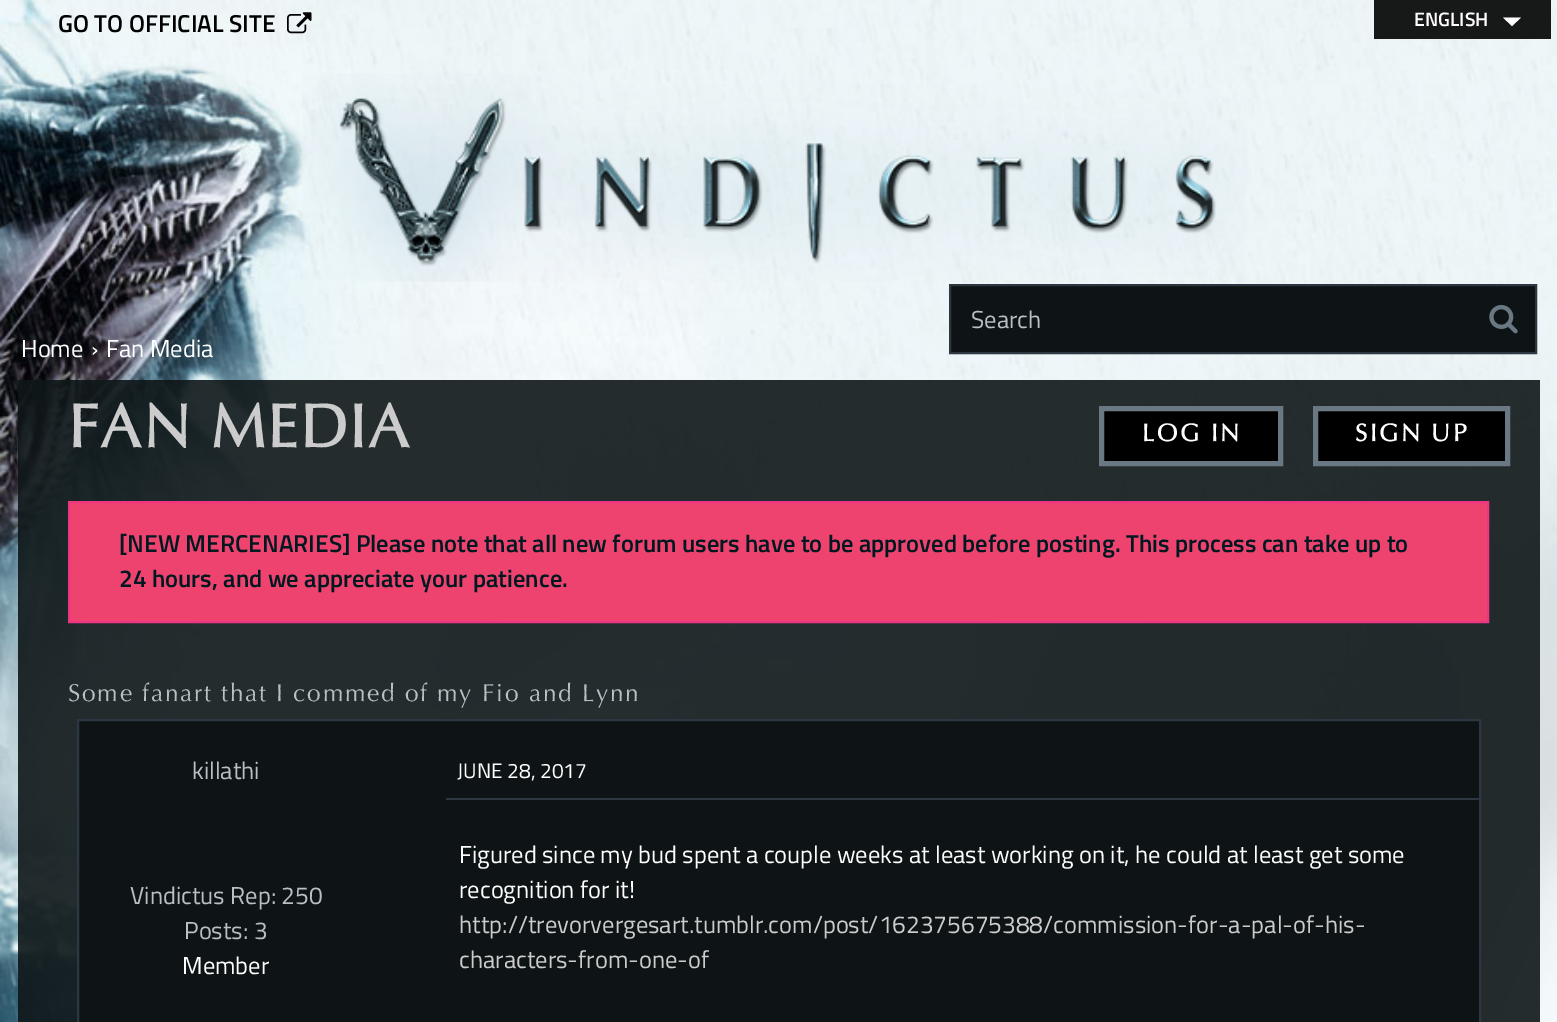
%!PS
<< /PageSize [1557 1022] /PageUsesTransparency true >> setpagedevice
/rgb { 3 { 255 div 3 1 roll } repeat setrgbcolor } def
/font { [ exch dup neg 0 0 3 -1 roll 0 0 ] selectfont } def
/alpha { dup .setfillconstantalpha .setstrokeconstantalpha } def
/picture { 5 dict begin { /h /w /y /x /name } { exch def } forall
  gsave x y translate w h scale
  w h 8 [w 0 0 h 0 0] name (r) file false 3 colorimage grestore end } def
0 .pushpdf14devicefilter
0 1022 translate 1 -1 scale
4 setmiterlimit
255 255 255 rgb
0 0 1557 1022 rectfill
(img/1.rgb) 0 0 1557 1022 picture
(img/2.rgb) 287 12 25 22 picture
0.9 alpha
0 0 0 rgb
1374 0 177 39 rectfill
1 alpha
255 255 255 rgb
1503 17.5 moveto 1521 17.5 lineto 1512 26 lineto closepath fill
(img/3.rgb) 302 73 945 209 picture
14 20 22 rgb
951 287 584 65 rectfill
13 19 20 rgb
950 286 585 1 rectfill
44 55 65 rgb
2 setlinewidth
950 285 586 68 rectstroke
(img/4.rgb) 1489 304 29 30 picture
0.9 alpha
14 22 24 rgb
18 380 1522 642 rectfill
1 alpha
239 67 111 rgb
69 502 moveto 1488 502 lineto 1488 622 lineto 69 622 lineto closepath gsave fill grestore
238 53 131 rgb
stroke
14 20 22 rgb
78 720 moveto 1480 720 lineto 1480 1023 lineto 78 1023 lineto closepath gsave fill grestore
44 55 65 rgb
stroke
446 798 1033 2 rectfill
0 0 0 rgb
1101.5 408.5 moveto 1280.5 408.5 lineto 1280.5 463.5 lineto 1101.5 463.5 lineto closepath gsave fill grestore
106 120 132 rgb
5 setlinewidth
stroke
0 0 0 rgb
1315.5 408.5 moveto 1507.5 408.5 lineto 1507.5 463.5 lineto 1315.5 463.5 lineto closepath gsave fill grestore
106 120 132 rgb
stroke
/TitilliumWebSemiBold-SemiBold 24.5 font
0 0 0 rgb
58 32 moveto (GO TO OFFICIAL SITE) show
/TitilliumWebSemiBold-SemiBold 19.5 font
255 255 255 rgb
1414 26 moveto (ENGLISH) show
/TitilliumWeb-Regular 24.5 font
184 191 197 rgb
971 328 moveto (Search) show
255 255 255 rgb
[
  [(Home) 21 357]
  [(›) 91 357]
  [(Fan Media) 106 357]
] { aload pop moveto show } forall
/Optima-Bold 61.25 font
204 204 204 rgb
68 447 moveto 1.75 0 (FAN MEDIA) ashow
/TitilliumWebSemiBold-SemiBold 24.5 font
0 24 31 rgb
119 552 moveto ([NEW MERCENARIES] Please note that all new forum users have to be approved before posting. This process can take up to) show
119 587 moveto (24 hours, and we appreciate your patience.) show
/Optima-Regular 24.5 font
184 191 197 rgb
68 701 moveto 1.75 0 (Some fanart that I commed of my Fio and Lynn) ashow
/TitilliumWeb-Regular 24.5 font
[
  [(killathi) 192 779]
  [(Vindictus Rep: 250) 130 904]
  [(Posts: 3) 184 939]
] { aload pop moveto show } forall
255 255 255 rgb
182 974 moveto (Member) show
/TitilliumWeb-Regular 21 font
457 778 moveto (JUNE 28, 2017) show
/TitilliumWeb-Regular 24.5 font
459 863 moveto (Figured since my bud spent a couple weeks at least working on it, he could at least get some) show
459 898 moveto (recognition for it!) show
204 204 204 rgb
459 933 moveto (http://trevorvergesart.tumblr.com/post/162375675388/commission-for-a-pal-of-his-) show
459 968 moveto (characters-from-one-of) show
/Optima-Bold 24.5 font
255 255 255 rgb
1142 441 moveto 2.5 0 (LOG IN) ashow
1355 441 moveto 2.5 0 (SIGN UP) ashow
.poppdf14devicefilter showpage
